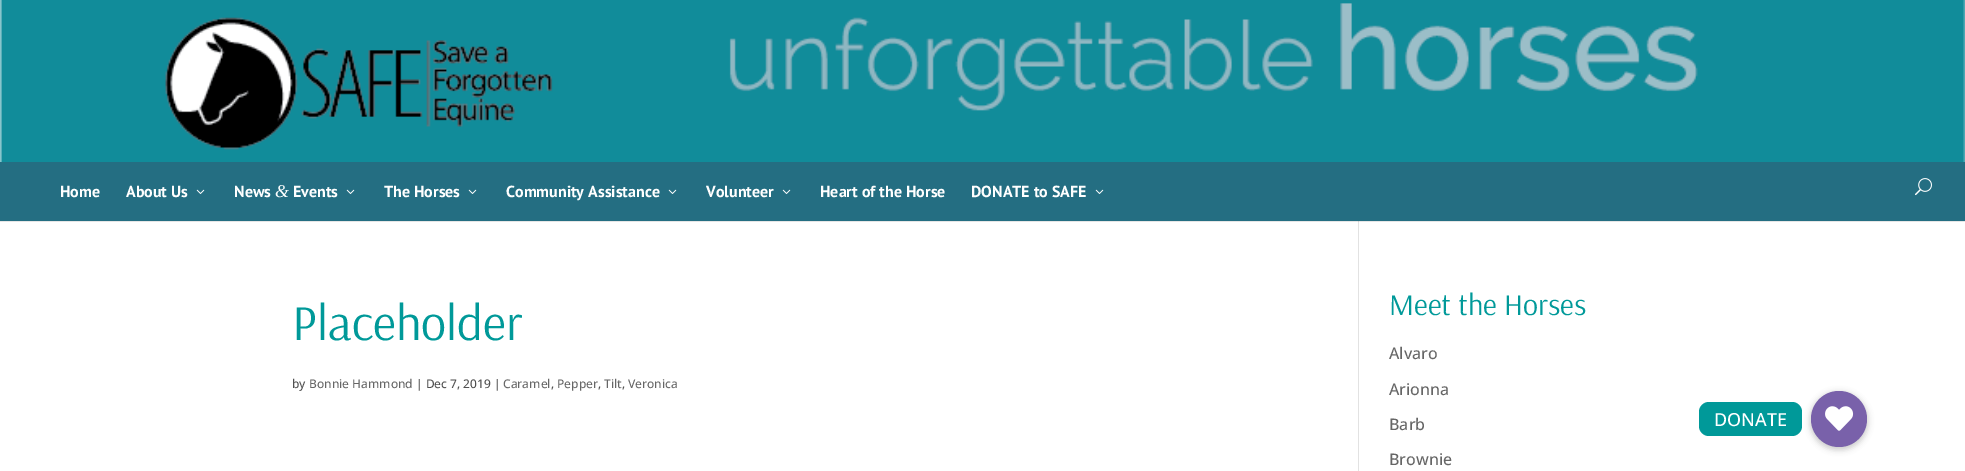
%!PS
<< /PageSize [1965 471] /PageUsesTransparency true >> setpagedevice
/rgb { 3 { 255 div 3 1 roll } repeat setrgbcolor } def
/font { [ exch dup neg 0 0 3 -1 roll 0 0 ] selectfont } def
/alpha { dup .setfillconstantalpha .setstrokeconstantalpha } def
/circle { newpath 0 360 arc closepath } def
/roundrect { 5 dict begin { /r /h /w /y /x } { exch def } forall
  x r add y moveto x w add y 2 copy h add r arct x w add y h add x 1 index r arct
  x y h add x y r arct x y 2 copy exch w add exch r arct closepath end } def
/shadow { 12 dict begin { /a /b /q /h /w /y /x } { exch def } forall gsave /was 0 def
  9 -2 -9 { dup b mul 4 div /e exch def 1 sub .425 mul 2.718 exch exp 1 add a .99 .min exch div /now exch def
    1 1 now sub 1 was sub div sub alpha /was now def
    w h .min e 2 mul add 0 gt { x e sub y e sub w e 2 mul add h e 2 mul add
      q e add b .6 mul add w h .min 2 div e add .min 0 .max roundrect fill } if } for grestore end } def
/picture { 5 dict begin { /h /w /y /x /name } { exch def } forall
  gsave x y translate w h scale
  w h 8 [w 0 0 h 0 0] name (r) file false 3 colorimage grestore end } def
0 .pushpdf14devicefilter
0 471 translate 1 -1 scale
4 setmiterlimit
255 255 255 rgb
0 0 1965 471 rectfill
230 230 230 rgb
0 221 1965 1 rectfill
(img/1.rgb) 0 0 1965 162 picture
36 110 130 rgb
0 162 1965 59 rectfill
(img/2.rgb) 196 189 9 5 picture
(img/2.rgb) 346 189 9 5 picture
(img/2.rgb) 468 189 9 5 picture
(img/2.rgb) 668 189 9 5 picture
(img/2.rgb) 782 189 9 5 picture
(img/2.rgb) 1095 189 9 5 picture
(img/3.rgb) 1915 178 17 18 picture
226 226 226 rgb
1358 221 1 250 rectfill
203 203 203 rgb
1358 221 1 1 rectfill
0 0 0 rgb
1810 392 58 58 29 3 0.2 shadow
121 97 170 rgb
1839 419 28 circle fill
0 153 153 rgb
1699 402 103 34 10 roundrect fill
(img/4.rgb) 1825 406 29 25 picture
/PTSans-Bold 16 font
255 255 255 rgb
[
  [(Home) 60 197]
  [(About Us) 126 197]
  [(News) 234 197]
] { aload pop moveto show } forall
/LiberationSerif-Italic 18 font
275 197 moveto (&) show
/PTSans-Bold 16 font
[
  [(Events) 293 197]
  [(The Horses) 384 197]
  [(Community Assistance) 506 197]
  [(Volunteer) 706 197]
  [(Heart of the Horse) 820 197]
  [(DONATE to SAFE) 971 197]
] { aload pop moveto show } forall
/Arsenal-Regular 50 font
0 153 153 rgb
292 340 moveto (Placeholder) show
/OpenSans-Medium 12 font
80 80 80 rgb
292 388 moveto (by) show
102 102 102 rgb
309 388 moveto (Bonnie Hammond) show
80 80 80 rgb
416 388 moveto (| Dec 7, 2019 |) show
102 102 102 rgb
503 388 moveto (Caramel) show
80 80 80 rgb
551 388 moveto (,) show
102 102 102 rgb
557 388 moveto (Pepper) show
80 80 80 rgb
598 388 moveto (,) show
102 102 102 rgb
604 388 moveto (Tilt) show
80 80 80 rgb
622 388 moveto (,) show
102 102 102 rgb
628 388 moveto (Veronica) show
/Arsenal-Regular 30 font
0 153 153 rgb
1389 315 moveto (Meet the Horses) show
/OpenSans-Medium 16 font
102 102 102 rgb
[
  [(Alvaro) 1389 359]
  [(Arionna) 1389 395]
  [(Barb) 1389 430]
  [(Brownie) 1389 465]
] { aload pop moveto show } forall
/OpenSans-Medium 18 font
255 255 255 rgb
1714 426 moveto (DONATE) show
.poppdf14devicefilter showpage
